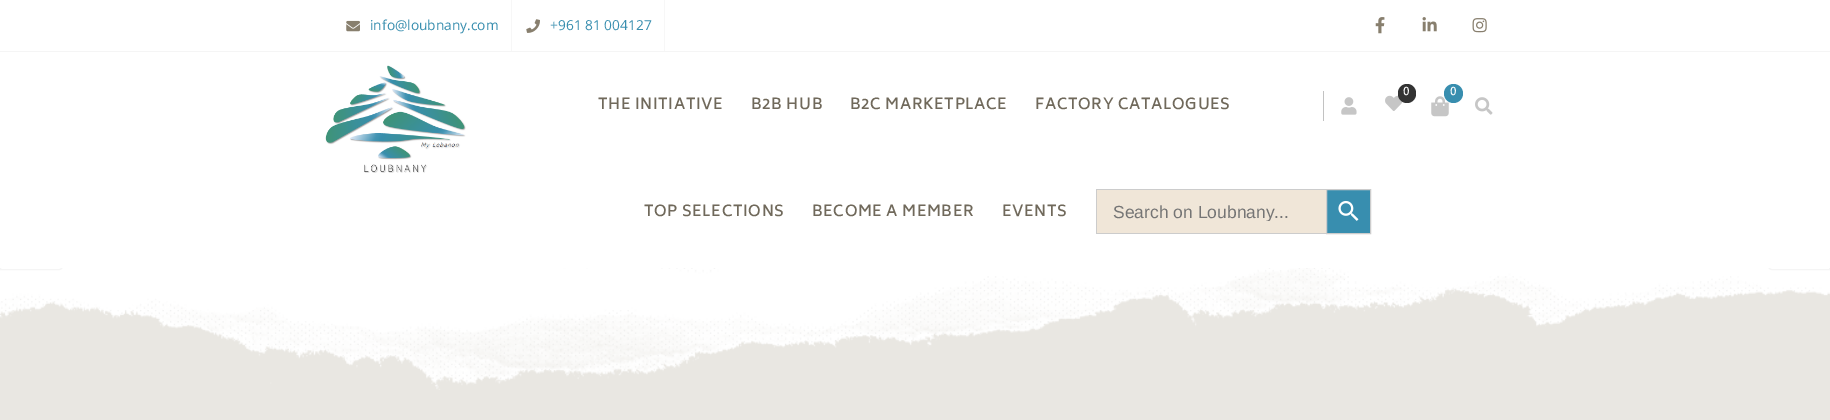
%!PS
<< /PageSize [1830 420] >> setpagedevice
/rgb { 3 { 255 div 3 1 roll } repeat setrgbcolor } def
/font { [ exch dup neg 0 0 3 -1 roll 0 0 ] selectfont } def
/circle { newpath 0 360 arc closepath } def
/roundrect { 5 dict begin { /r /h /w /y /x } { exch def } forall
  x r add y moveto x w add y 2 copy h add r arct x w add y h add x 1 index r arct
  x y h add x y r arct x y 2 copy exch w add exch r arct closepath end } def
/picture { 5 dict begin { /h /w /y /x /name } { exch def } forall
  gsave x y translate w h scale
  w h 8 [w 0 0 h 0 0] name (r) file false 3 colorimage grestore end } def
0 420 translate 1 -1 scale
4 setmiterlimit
233 231 226 rgb
0 0 1830 420 rectfill
(img/12.rgb) 0 268 1830 122 picture
245 245 245 rgb
0.5 150.5 moveto 59 150.5 lineto 61 150.5 62.5 152 62.5 154 curveto 62.5 266 lineto 62.5 268 61 269.5 59 269.5 curveto 0.5 269.5 lineto closepath stroke
1772 150.5 moveto 1829.5 150.5 lineto 1829.5 269.5 lineto 1772 269.5 lineto 1770 269.5 1768.5 268 1768.5 266 curveto 1768.5 154 lineto 1768.5 152 1770 150.5 1772 150.5 curveto closepath stroke
[
  [0 0 1830 268 255 255 255]
  [0 51 1830 1 245 245 245]
  [511 0 1 51 247 247 247]
] { aload pop rgb rectfill } forall
(img/1.rgb) 346 20 14 12 picture
664 0 1 51 rectfill
(img/2.rgb) 526 19 14 14 picture
(img/3.rgb) 1375 17 10 17 picture
(img/4.rgb) 1422 17 15 15 picture
(img/5.rgb) 1472 18 15 15 picture
(img/6.rgb) 325 65 141 108 picture
194 194 194 rgb
1323 91 1 30 rectfill
(img/7.rgb) 1341 97 16 18 picture
(img/8.rgb) 1385 95 18 16 picture
51 51 51 rgb
1398 84 18 19 9 roundrect fill
(img/9.rgb) 1431 96 18 21 picture
56 142 175 rgb
1453.5 93.5 9.5 circle fill
(img/10.rgb) 1475 97 18 18 picture
[
  [1097 190 229 43 240 230 216]
  [1096 189 233 1 204 204 204]
  [1096 233 233 1 204 204 204]
  [1096 189 1 45 204 204 204]
] { aload pop rgb rectfill } forall
56 142 175 rgb
1326.5 189.5 moveto 1370.5 189.5 lineto 1370.5 233.5 lineto 1326.5 233.5 lineto closepath gsave fill grestore
204 204 204 rgb
stroke
(img/11.rgb) 1338 200 21 21 picture
/OpenSans-Regular 13.75 font
56 142 175 rgb
370 30 moveto (info@loubnany.com) show
550 30 moveto (+961 81 004127) show
/Biryani-Regular 12 font
255 255 255 rgb
1403 95 moveto (0) show
1450 95 moveto (0) show
/Biryani-SemiBold 15 font
112 105 91 rgb
598 109 moveto 0.6 0 (THE INITIATIVE) ashow
751 109 moveto 0.6 0 (B2B HUB) ashow
850 109 moveto 0.6 0 (B2C MARKETPLACE) ashow
1035 109 moveto 0.6 0 (FACTORY CATALOGUES) ashow
644 216 moveto 0.6 0 (TOP SELECTIONS) ashow
812 216 moveto 0.6 0 (BECOME A MEMBER) ashow
1002 216 moveto 0.6 0 (EVENTS) ashow
gsave
1113 201 201 20 rectclip
/LiberationSans-Regular 17.5 font
117 117 117 rgb
1113 218 moveto (Search on Loubnany...) show
grestore
showpage
